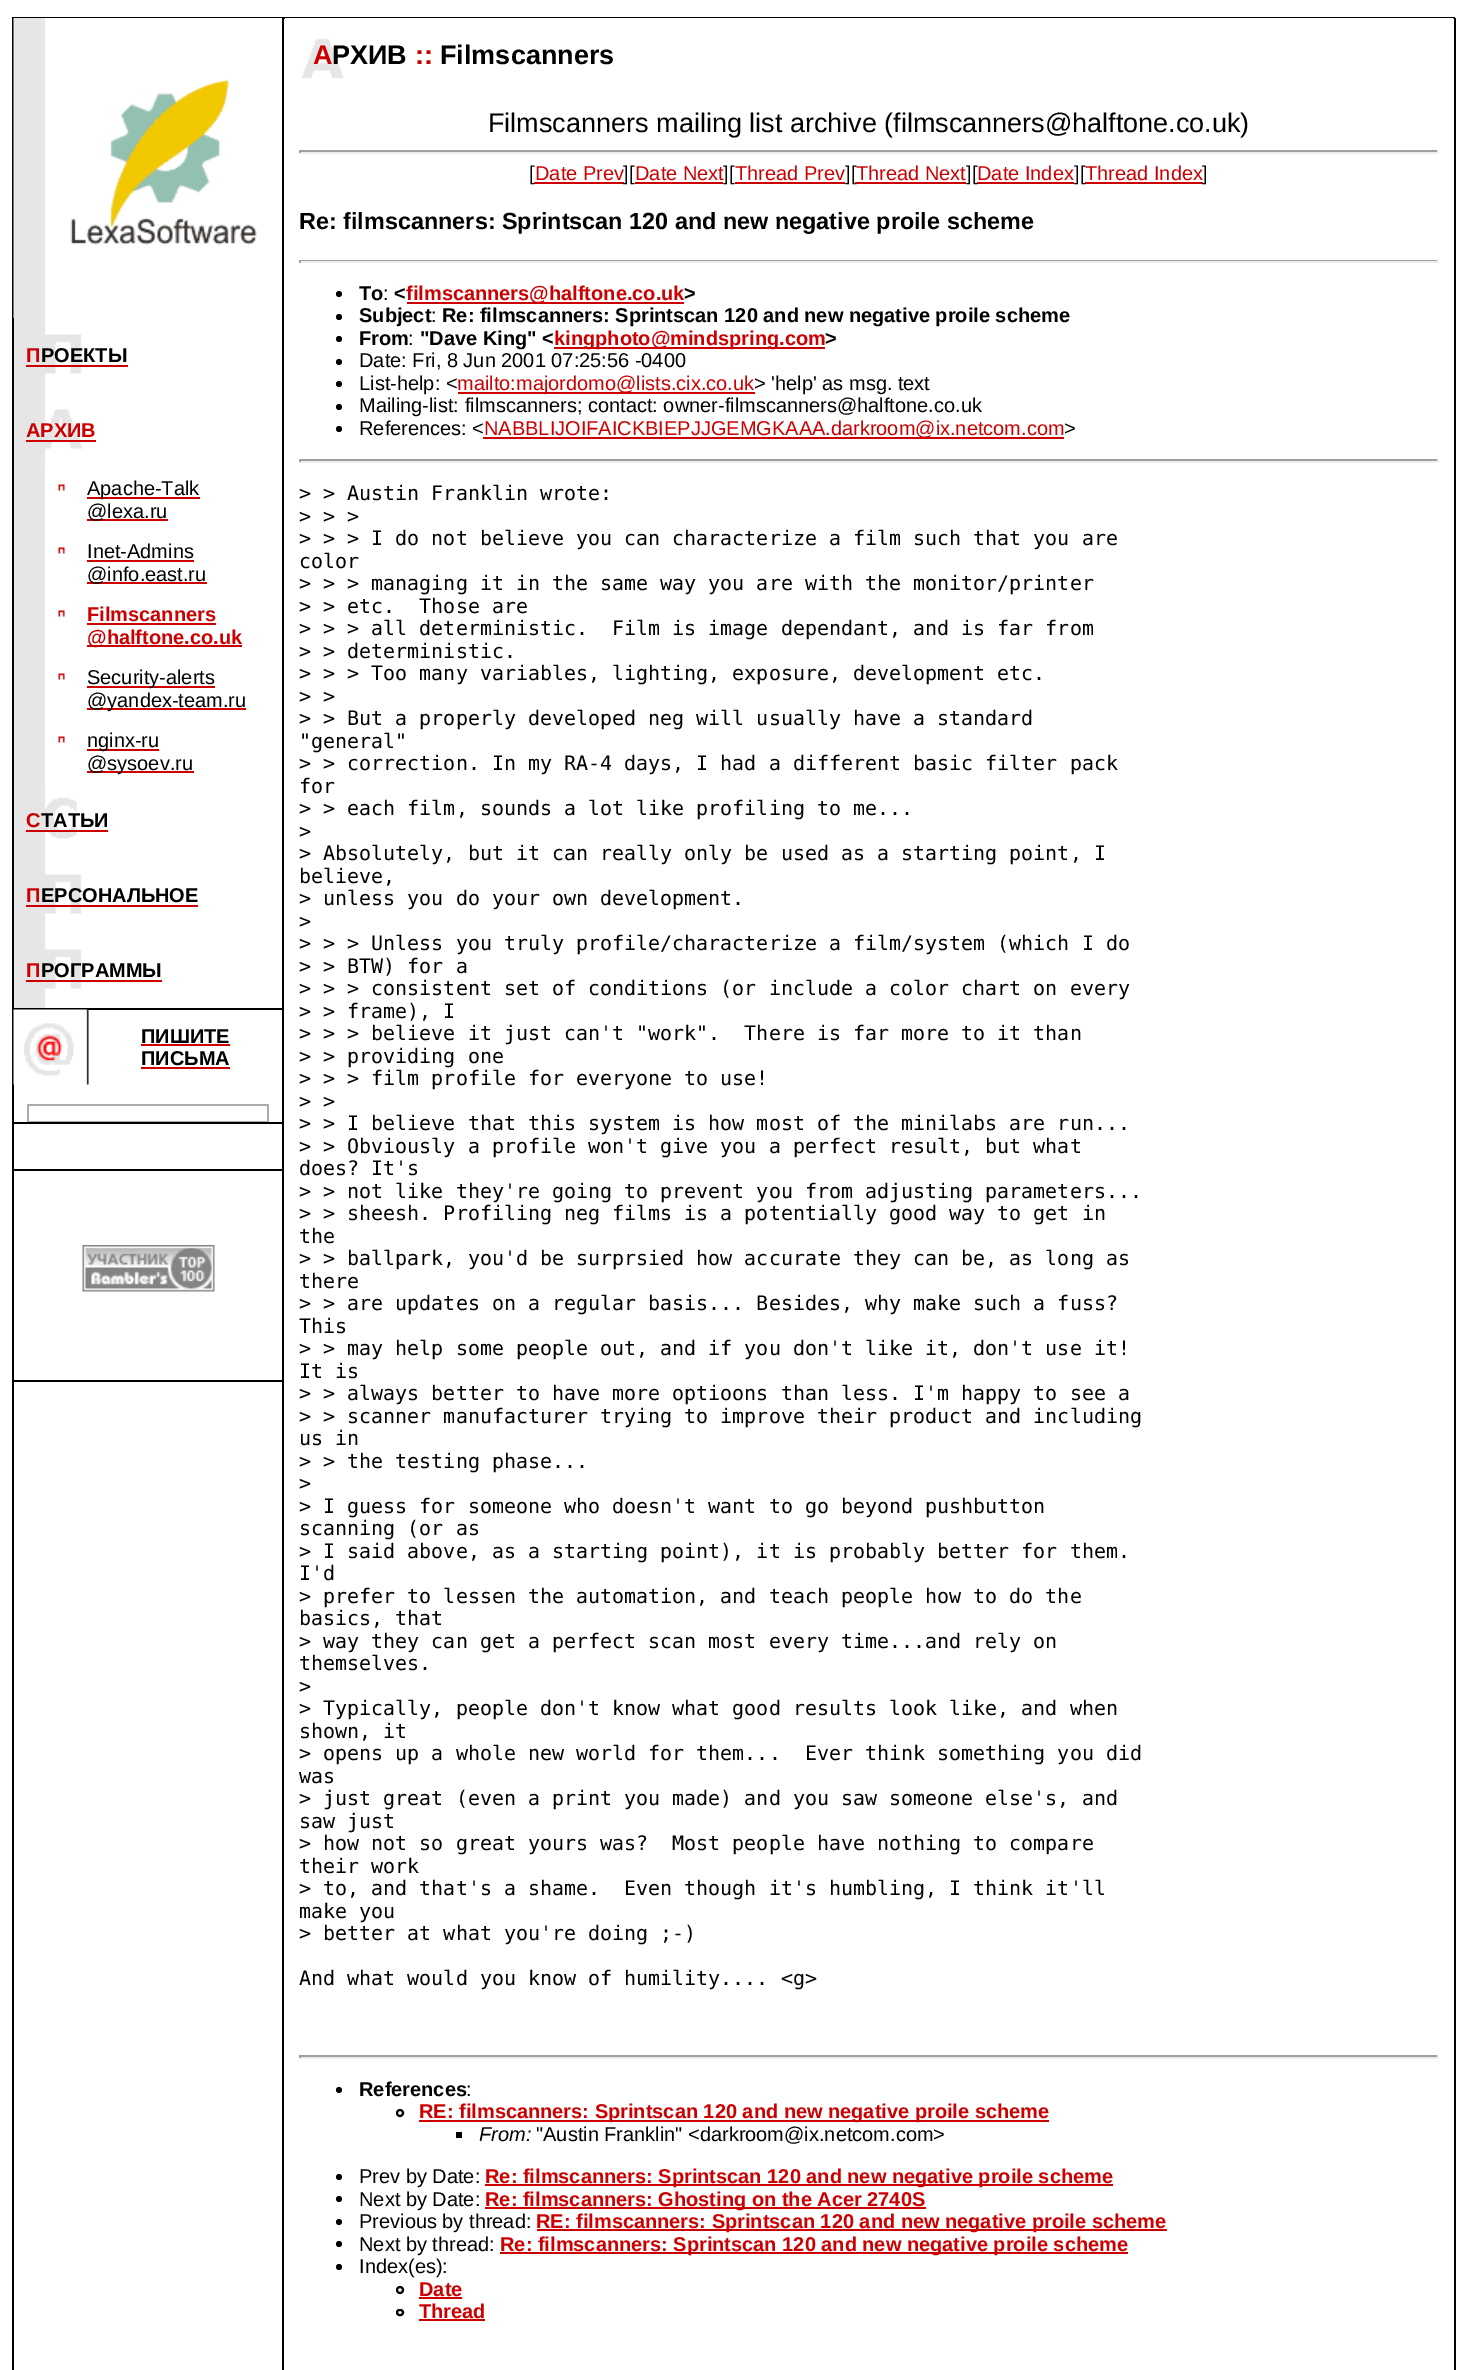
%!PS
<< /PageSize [1467 2370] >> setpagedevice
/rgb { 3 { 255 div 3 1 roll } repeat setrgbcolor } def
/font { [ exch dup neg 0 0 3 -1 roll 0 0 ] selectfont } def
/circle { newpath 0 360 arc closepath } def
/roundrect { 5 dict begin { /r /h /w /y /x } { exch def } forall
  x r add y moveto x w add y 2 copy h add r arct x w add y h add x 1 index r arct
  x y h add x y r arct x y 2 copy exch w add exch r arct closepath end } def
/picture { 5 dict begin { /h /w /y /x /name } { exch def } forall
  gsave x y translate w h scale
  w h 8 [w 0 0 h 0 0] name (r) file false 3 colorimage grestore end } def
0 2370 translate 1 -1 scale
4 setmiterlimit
255 255 255 rgb
0 0 1467 2370 rectfill
0 0 0 rgb
12 17 1443 2 rectfill
12 18 2 2352 rectfill
(img/1.rgb) 13 18 269 300 picture
230 230 230 rgb
14 318 2 150 rectfill
(img/2.rgb) 16 318 66 75 picture
204 0 0 rgb
26 365 102 2 rectfill
(img/3.rgb) 16 393 67 75 picture
[
  [26 440 70 2 204 0 0]
  [14 468 1 315 230 230 230]
  [15 468 30 315 230 230 230]
] { aload pop rgb rectfill } forall
(img/4.rgb) 58 484 7 7 picture
204 0 0 rgb
87 497 113 2 rectfill
87 519 81 2 rectfill
(img/4.rgb) 58 547 7 7 picture
87 560 107 2 rectfill
87 582 120 2 rectfill
(img/4.rgb) 58 610 7 7 picture
87 623 129 2 rectfill
87 645 155 2 rectfill
(img/4.rgb) 58 673 7 7 picture
87 686 128 2 rectfill
87 708 159 2 rectfill
(img/4.rgb) 58 736 7 7 picture
[
  [87 749 72 2 204 0 0]
  [87 771 107 2 204 0 0]
  [14 783 2 225 230 230 230]
] { aload pop rgb rectfill } forall
(img/5.rgb) 16 783 61 75 picture
204 0 0 rgb
26 830 82 2 rectfill
(img/2.rgb) 16 858 66 75 picture
26 905 172 2 rectfill
(img/2.rgb) 16 933 66 75 picture
26 980 136 2 rectfill
0 0 0 rgb
14 1008 268 2 rectfill
(img/6.rgb) 13 1009 76 76 picture
[
  [141 1044 89 2 204 0 0]
  [141 1067 89 2 204 0 0]
  [27 1104 242 18 170 170 170]
  [29 1106 238 15 255 255 255]
  [14 1122 268 2 0 0 0]
  [14 1169 268 2 0 0 0]
] { aload pop rgb rectfill } forall
(img/7.rgb) 82 1245 133 47 picture
14 1380 268 2 rectfill
282 18 2 2352 rectfill
(img/8.rgb) 285 18 1169 61 picture
[
  [299 150 1140 2 159 159 159]
  [1437 150 2 3 238 238 238]
  [299 152 1140 2 238 238 238]
  [299 150 2 3 159 159 159]
  [635 182 88 2 204 0 0]
  [735 182 110 2 204 0 0]
  [977 182 97 2 204 0 0]
  [1085 182 118 2 204 0 0]
  [299 260 1140 1 159 159 159]
  [1437 260 2 3 238 238 238]
  [299 261 1140 2 238 238 238]
  [299 260 2 3 159 159 159]
] { aload pop rgb rectfill } forall
0 0 0 rgb
339 294 3 circle fill
204 0 0 rgb
407 302 277 2 rectfill
0 0 0 rgb
339 317 3 circle fill
339 339 3 circle fill
204 0 0 rgb
554 347 271 2 rectfill
0 0 0 rgb
339 362 3 circle fill
339 384 3 circle fill
204 0 0 rgb
458 392 297 2 rectfill
0 0 0 rgb
339 407 3 circle fill
339 429 3 circle fill
[
  [483 437 581 2 204 0 0]
  [299 459 1140 2 159 159 159]
  [1437 459 2 3 238 238 238]
  [299 461 1140 2 238 238 238]
  [299 459 2 3 159 159 159]
  [299 2055 1140 2 159 159 159]
  [1437 2055 2 3 238 238 238]
  [299 2057 1140 2 238 238 238]
  [299 2055 2 3 159 159 159]
] { aload pop rgb rectfill } forall
0 0 0 rgb
339 2090 3 circle fill
2 setlinewidth
400 2113 3 circle stroke
204 0 0 rgb
419 2120 630 2 rectfill
0 0 0 rgb
456 2132 6 6 rectfill
339 2177 3 circle fill
204 0 0 rgb
485 2184 628 2 rectfill
0 0 0 rgb
339 2199 3 circle fill
204 0 0 rgb
485 2207 441 2 rectfill
0 0 0 rgb
339 2222 3 circle fill
204 0 0 rgb
537 2229 630 2 rectfill
0 0 0 rgb
339 2244 3 circle fill
204 0 0 rgb
500 2252 628 2 rectfill
0 0 0 rgb
339 2267 3 circle fill
400 2290 3 circle stroke
204 0 0 rgb
419 2297 43 2 rectfill
0 0 0 rgb
397 2310 6 5 2.5 roundrect stroke
204 0 0 rgb
419 2319 66 2 rectfill
0 0 0 rgb
1454 18 2 2352 rectfill
/LiberationSans-Bold 20 font
204 0 0 rgb
26 362 moveto (П) show
0 0 0 rgb
41 362 moveto (РОЕКТЫ) show
204 0 0 rgb
26 437 moveto (АРХИВ) show
/LiberationSans-Regular 20 font
0 0 0 rgb
[
  [(Apache-Talk) 87 495]
  [(@lexa.ru) 87 518]
  [(Inet-Admins) 87 558]
  [(@info.east.ru) 87 581]
] { aload pop moveto show } forall
/LiberationSans-Bold 20 font
204 0 0 rgb
87 621 moveto (Filmscanners) show
87 644 moveto (@halftone.co.uk) show
/LiberationSans-Regular 20 font
0 0 0 rgb
[
  [(Security-alerts) 87 684]
  [(@yandex-team.ru) 87 707]
  [(nginx-ru) 87 747]
  [(@sysoev.ru) 87 770]
] { aload pop moveto show } forall
/LiberationSans-Bold 20 font
204 0 0 rgb
26 827 moveto (С) show
0 0 0 rgb
41 827 moveto (ТАТЬИ) show
204 0 0 rgb
26 902 moveto (П) show
0 0 0 rgb
41 902 moveto (ЕРСОНАЛЬНОЕ) show
204 0 0 rgb
26 977 moveto (П) show
0 0 0 rgb
[
  [(РОГРАММЫ) 41 977]
  [(ПИШИТЕ) 141 1043]
  [(ПИСЬМА) 141 1065]
] { aload pop moveto show } forall
/LiberationSans-Bold 27 font
204 0 0 rgb
313 64 moveto (А) show
0 0 0 rgb
332 64 moveto (РХИВ) show
204 0 0 rgb
415 64 moveto (::) show
0 0 0 rgb
440 64 moveto (Filmscanners) show
/LiberationSans-Regular 27 font
488 132 moveto (Filmscanners mailing list archive \(filmscanners@halftone.co.uk\)) show
/LiberationSans-Regular 20 font
529 180 moveto ([) show
204 0 0 rgb
535 180 moveto (Date Prev) show
534 182 90 2 rectfill
0 0 0 rgb
623 180 moveto (][) show
204 0 0 rgb
635 180 moveto (Date Next) show
0 0 0 rgb
723 180 moveto (][) show
204 0 0 rgb
735 180 moveto (Thread Prev) show
0 0 0 rgb
845 180 moveto (][) show
204 0 0 rgb
856 180 moveto (Thread Next) show
855 182 111 2 rectfill
0 0 0 rgb
966 180 moveto (][) show
204 0 0 rgb
977 180 moveto (Date Index) show
0 0 0 rgb
1074 180 moveto (][) show
204 0 0 rgb
1085 180 moveto (Thread Index) show
0 0 0 rgb
1202 180 moveto (]) show
/LiberationSans-Bold 23.4 font
299 229 moveto (Re: filmscanners: Sprintscan 120 and new negative proile scheme) show
/LiberationSans-Bold 20 font
359 300 moveto (To) show
/LiberationSans-Regular 20 font
383 300 moveto (:) show
/LiberationSans-Bold 20 font
394 300 moveto (<) show
204 0 0 rgb
406 300 moveto (filmscanners@halftone.co.uk) show
0 0 0 rgb
684 300 moveto (>) show
359 322 moveto (Subject) show
/LiberationSans-Regular 20 font
431 322 moveto (:) show
/LiberationSans-Bold 20 font
442 322 moveto (Re: filmscanners: Sprintscan 120 and new negative proile scheme) show
359 345 moveto (From) show
/LiberationSans-Regular 20 font
408 345 moveto (:) show
/LiberationSans-Bold 20 font
420 345 moveto ("Dave King" <) show
204 0 0 rgb
554 345 moveto (kingphoto@mindspring.com) show
0 0 0 rgb
825 345 moveto (>) show
/LiberationSans-Regular 20 font
359 367 moveto (Date: Fri, 8 Jun 2001 07:25:56 -0400) show
359 390 moveto (List-help: <) show
204 0 0 rgb
457 390 moveto (mailto:majordomo@lists.cix.co.uk) show
0 0 0 rgb
[
  [(> 'help' as msg. text) 754 390]
  [(Mailing-list: filmscanners; contact: owner-filmscanners@halftone.co.uk) 359 412]
  [(References: <) 359 435]
] { aload pop moveto show } forall
204 0 0 rgb
484 435 moveto (NABBLIJOIFAICKBIEPJJGEMGKAAA.darkroom@ix.netcom.com) show
0 0 0 rgb
1064 435 moveto (>) show
/DejaVuSansMono-Regular 20 font
[
  [(> > Austin Franklin wrote:) 299 500]
  [(> > >) 299 523]
  [(> > > I do not believe you can characterize a film such that you are) 299 545]
  [(color) 299 568]
  [(> > > managing it in the same way you are with the monitor/printer) 299 590]
  [(> > etc.  Those are) 299 613]
  [(> > > all deterministic.  Film is image dependant, and is far from) 299 635]
  [(> > deterministic.) 299 658]
  [(> > > Too many variables, lighting, exposure, development etc.) 299 680]
  [(> >) 299 703]
  [(> > But a properly developed neg will usually have a standard) 299 725]
  [("general") 299 748]
  [(> > correction. In my RA-4 days, I had a different basic filter pack) 299 770]
  [(for) 299 793]
  [(> > each film, sounds a lot like profiling to me...) 299 815]
  [(>) 299 838]
  [(> Absolutely, but it can really only be used as a starting point, I) 299 860]
  [(believe,) 299 883]
  [(> unless you do your own development.) 299 905]
  [(>) 299 928]
  [(> > > Unless you truly profile/characterize a film/system \(which I do) 299 950]
  [(> > BTW\) for a) 299 973]
  [(> > > consistent set of conditions \(or include a color chart on every) 299 995]
  [(> > frame\), I) 299 1018]
  [(> > > believe it just can't "work".  There is far more to it than) 299 1040]
  [(> > providing one) 299 1063]
  [(> > > film profile for everyone to use!) 299 1085]
  [(> >) 299 1108]
  [(> > I believe that this system is how most of the minilabs are run...) 299 1130]
  [(> > Obviously a profile won't give you a perfect result, but what) 299 1153]
  [(does? It's) 299 1175]
  [(> > not like they're going to prevent you from adjusting parameters...) 299 1198]
  [(> > sheesh. Profiling neg films is a potentially good way to get in) 299 1220]
  [(the) 299 1243]
  [(> > ballpark, you'd be surprsied how accurate they can be, as long as) 299 1265]
  [(there) 299 1288]
  [(> > are updates on a regular basis... Besides, why make such a fuss?) 299 1310]
  [(This) 299 1333]
  [(> > may help some people out, and if you don't like it, don't use it!) 299 1355]
  [(It is) 299 1378]
  [(> > always better to have more optioons than less. I'm happy to see a) 299 1400]
  [(> > scanner manufacturer trying to improve their product and including) 299 1423]
  [(us in) 299 1445]
  [(> > the testing phase...) 299 1468]
  [(>) 299 1490]
  [(> I guess for someone who doesn't want to go beyond pushbutton) 299 1513]
  [(scanning \(or as) 299 1535]
  [(> I said above, as a starting point\), it is probably better for them.) 299 1558]
  [(I'd) 299 1580]
  [(> prefer to lessen the automation, and teach people how to do the) 299 1603]
  [(basics, that) 299 1625]
  [(> way they can get a perfect scan most every time...and rely on) 299 1648]
  [(themselves.) 299 1670]
  [(>) 299 1693]
  [(> Typically, people don't know what good results look like, and when) 299 1715]
  [(shown, it) 299 1738]
  [(> opens up a whole new world for them...  Ever think something you did) 299 1760]
  [(was) 299 1783]
  [(> just great \(even a print you made\) and you saw someone else's, and) 299 1805]
  [(saw just) 299 1828]
  [(> how not so great yours was?  Most people have nothing to compare) 299 1850]
  [(their work) 299 1873]
  [(> to, and that's a shame.  Even though it's humbling, I think it'll) 299 1895]
  [(make you) 299 1918]
  [(> better at what you're doing ;-\)) 299 1940]
  [(And what would you know of humility.... <g>) 299 1985]
] { aload pop moveto show } forall
/LiberationSans-Bold 20 font
359 2096 moveto (References) show
/LiberationSans-Regular 20 font
466 2096 moveto (:) show
/LiberationSans-Bold 20 font
204 0 0 rgb
419 2118 moveto (RE: filmscanners: Sprintscan 120 and new negative proile scheme) show
/LiberationSans-Italic 20 font
0 0 0 rgb
479 2141 moveto (From:) show
/LiberationSans-Regular 20 font
536 2141 moveto ("Austin Franklin" <darkroom@ix.netcom.com>) show
359 2183 moveto (Prev by Date:) show
/LiberationSans-Bold 20 font
204 0 0 rgb
485 2183 moveto (Re: filmscanners: Sprintscan 120 and new negative proile scheme) show
/LiberationSans-Regular 20 font
0 0 0 rgb
359 2206 moveto (Next by Date:) show
/LiberationSans-Bold 20 font
204 0 0 rgb
485 2206 moveto (Re: filmscanners: Ghosting on the Acer 2740S) show
/LiberationSans-Regular 20 font
0 0 0 rgb
359 2228 moveto (Previous by thread:) show
/LiberationSans-Bold 20 font
204 0 0 rgb
536 2228 moveto (RE: filmscanners: Sprintscan 120 and new negative proile scheme) show
/LiberationSans-Regular 20 font
0 0 0 rgb
359 2251 moveto (Next by thread:) show
/LiberationSans-Bold 20 font
204 0 0 rgb
500 2251 moveto (Re: filmscanners: Sprintscan 120 and new negative proile scheme) show
/LiberationSans-Regular 20 font
0 0 0 rgb
359 2273 moveto (Index\(es\):) show
/LiberationSans-Bold 20 font
204 0 0 rgb
419 2296 moveto (Date) show
419 2318 moveto (Thread) show
showpage
